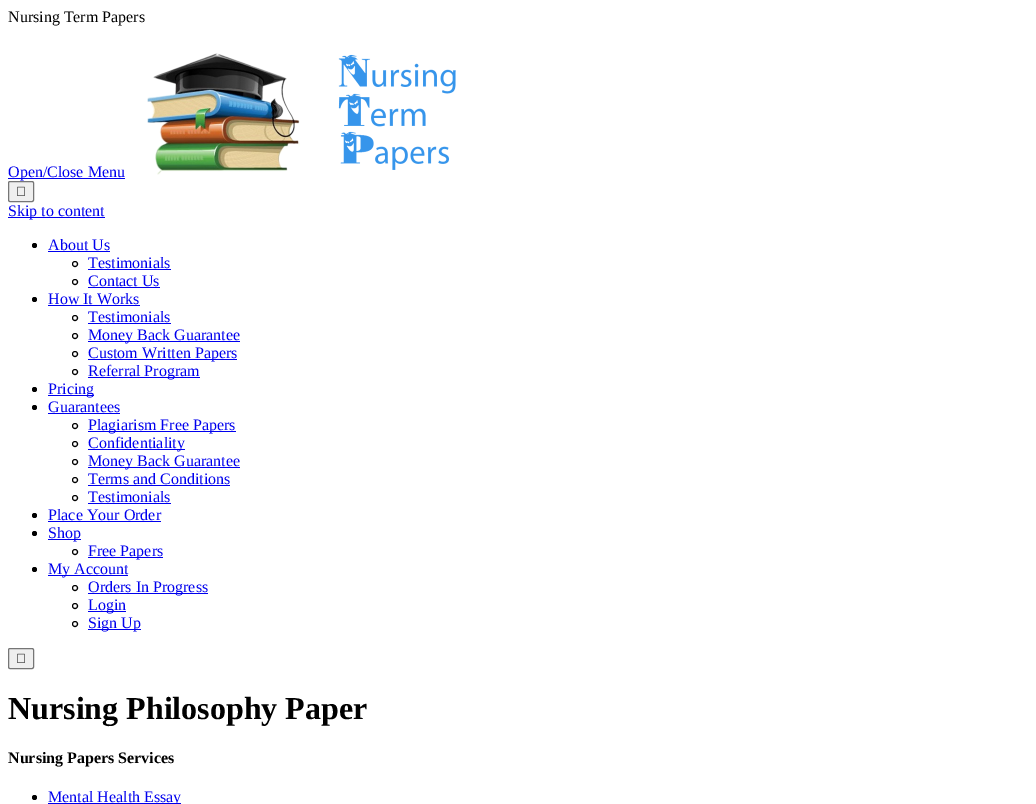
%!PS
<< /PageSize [1036 804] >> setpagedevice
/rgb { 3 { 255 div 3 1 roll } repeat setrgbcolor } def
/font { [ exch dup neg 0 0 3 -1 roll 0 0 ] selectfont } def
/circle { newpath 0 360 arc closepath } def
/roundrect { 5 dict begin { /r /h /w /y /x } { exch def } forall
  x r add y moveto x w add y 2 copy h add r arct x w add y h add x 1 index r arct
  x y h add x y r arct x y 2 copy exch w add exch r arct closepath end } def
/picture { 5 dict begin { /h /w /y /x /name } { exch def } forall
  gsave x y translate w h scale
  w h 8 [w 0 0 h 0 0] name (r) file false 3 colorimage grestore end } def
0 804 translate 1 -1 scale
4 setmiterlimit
255 255 255 rgb
0 0 1036 804 rectfill
0 0 238 rgb
8 178 117 1 rectfill
(img/1.rgb) 147 53 309 122 picture
239 239 239 rgb
8.5 181.5 25 20 1.5 roundrect gsave fill grestore
118 118 118 rgb
stroke
(img/2.rgb) 17 186 8 10 picture
0 0 238 rgb
8 217 97 1 rectfill
0 0 0 rgb
34.5 245.5 2.5 circle fill
0 0 238 rgb
48 251 62 1 rectfill
0 0 0 rgb
75 264 2.5 circle stroke
0 0 238 rgb
88 269 83 1 rectfill
0 0 0 rgb
75 282 2.5 circle stroke
0 0 238 rgb
88 287 72 1 rectfill
0 0 0 rgb
34.5 299.5 2.5 circle fill
0 0 238 rgb
48 305 92 1 rectfill
0 0 0 rgb
75 318 2.5 circle stroke
0 0 238 rgb
88 323 83 1 rectfill
0 0 0 rgb
75 336 2.5 circle stroke
0 0 238 rgb
88 341 152 1 rectfill
0 0 0 rgb
75 354 2.5 circle stroke
0 0 238 rgb
88 359 149 1 rectfill
0 0 0 rgb
75 372 2.5 circle stroke
0 0 238 rgb
88 377 112 1 rectfill
0 0 0 rgb
34.5 389.5 2.5 circle fill
0 0 238 rgb
48 395 46 1 rectfill
0 0 0 rgb
34.5 407.5 2.5 circle fill
0 0 238 rgb
48 413 72 1 rectfill
0 0 0 rgb
75 426 2.5 circle stroke
0 0 238 rgb
88 431 148 1 rectfill
0 0 0 rgb
75 444 2.5 circle stroke
0 0 238 rgb
88 449 97 1 rectfill
0 0 0 rgb
75 462 2.5 circle stroke
0 0 238 rgb
88 467 152 1 rectfill
0 0 0 rgb
75 480 2.5 circle stroke
0 0 238 rgb
88 485 142 1 rectfill
0 0 0 rgb
75 498 2.5 circle stroke
0 0 238 rgb
88 503 83 1 rectfill
0 0 0 rgb
34.5 515.5 2.5 circle fill
0 0 238 rgb
48 521 113 1 rectfill
0 0 0 rgb
34.5 533.5 2.5 circle fill
0 0 238 rgb
48 539 33 1 rectfill
0 0 0 rgb
75 552 2.5 circle stroke
0 0 238 rgb
88 557 75 1 rectfill
0 0 0 rgb
34.5 569.5 2.5 circle fill
0 0 238 rgb
48 575 80 1 rectfill
0 0 0 rgb
75 588 2.5 circle stroke
0 0 238 rgb
88 593 120 1 rectfill
0 0 0 rgb
75 606 2.5 circle stroke
0 0 238 rgb
88 611 38 1 rectfill
0 0 0 rgb
75 624 2.5 circle stroke
0 0 238 rgb
88 629 53 1 rectfill
239 239 239 rgb
8.5 648.5 25 20 1.5 roundrect gsave fill grestore
118 118 118 rgb
stroke
(img/2.rgb) 17 653 8 10 picture
0 0 0 rgb
34.5 797.5 2.5 circle fill
0 0 238 rgb
48 803 133 1 rectfill
/LiberationSerif-Regular 16 font
0 0 0 rgb
8 22 moveto (Nursing Term Papers) show
0 0 238 rgb
[
  [(Open/Close Menu) 8 177]
  [(Skip to content) 8 216]
  [(About Us) 48 250]
  [(Testimonials) 88 268]
  [(Contact Us) 88 286]
  [(How It Works) 48 304]
  [(Testimonials) 88 322]
  [(Money Back Guarantee) 88 340]
  [(Custom Written Papers) 88 358]
  [(Referral Program) 88 376]
  [(Pricing) 48 394]
  [(Guarantees) 48 412]
  [(Plagiarism Free Papers) 88 430]
  [(Confidentiality) 88 448]
  [(Money Back Guarantee) 88 466]
  [(Terms and Conditions) 88 484]
  [(Testimonials) 88 502]
  [(Place Your Order) 48 520]
  [(Shop) 48 538]
  [(Free Papers) 88 556]
  [(My Account) 48 574]
  [(Orders In Progress) 88 592]
  [(Login) 88 610]
  [(Sign Up) 88 628]
] { aload pop moveto show } forall
/LiberationSerif-Bold 32 font
0 0 0 rgb
8 719 moveto (Nursing Philosophy Paper) show
/LiberationSerif-Bold 16 font
8 763 moveto (Nursing Papers Services) show
/LiberationSerif-Regular 16 font
0 0 238 rgb
48 802 moveto (Mental Health Essay) show
showpage
